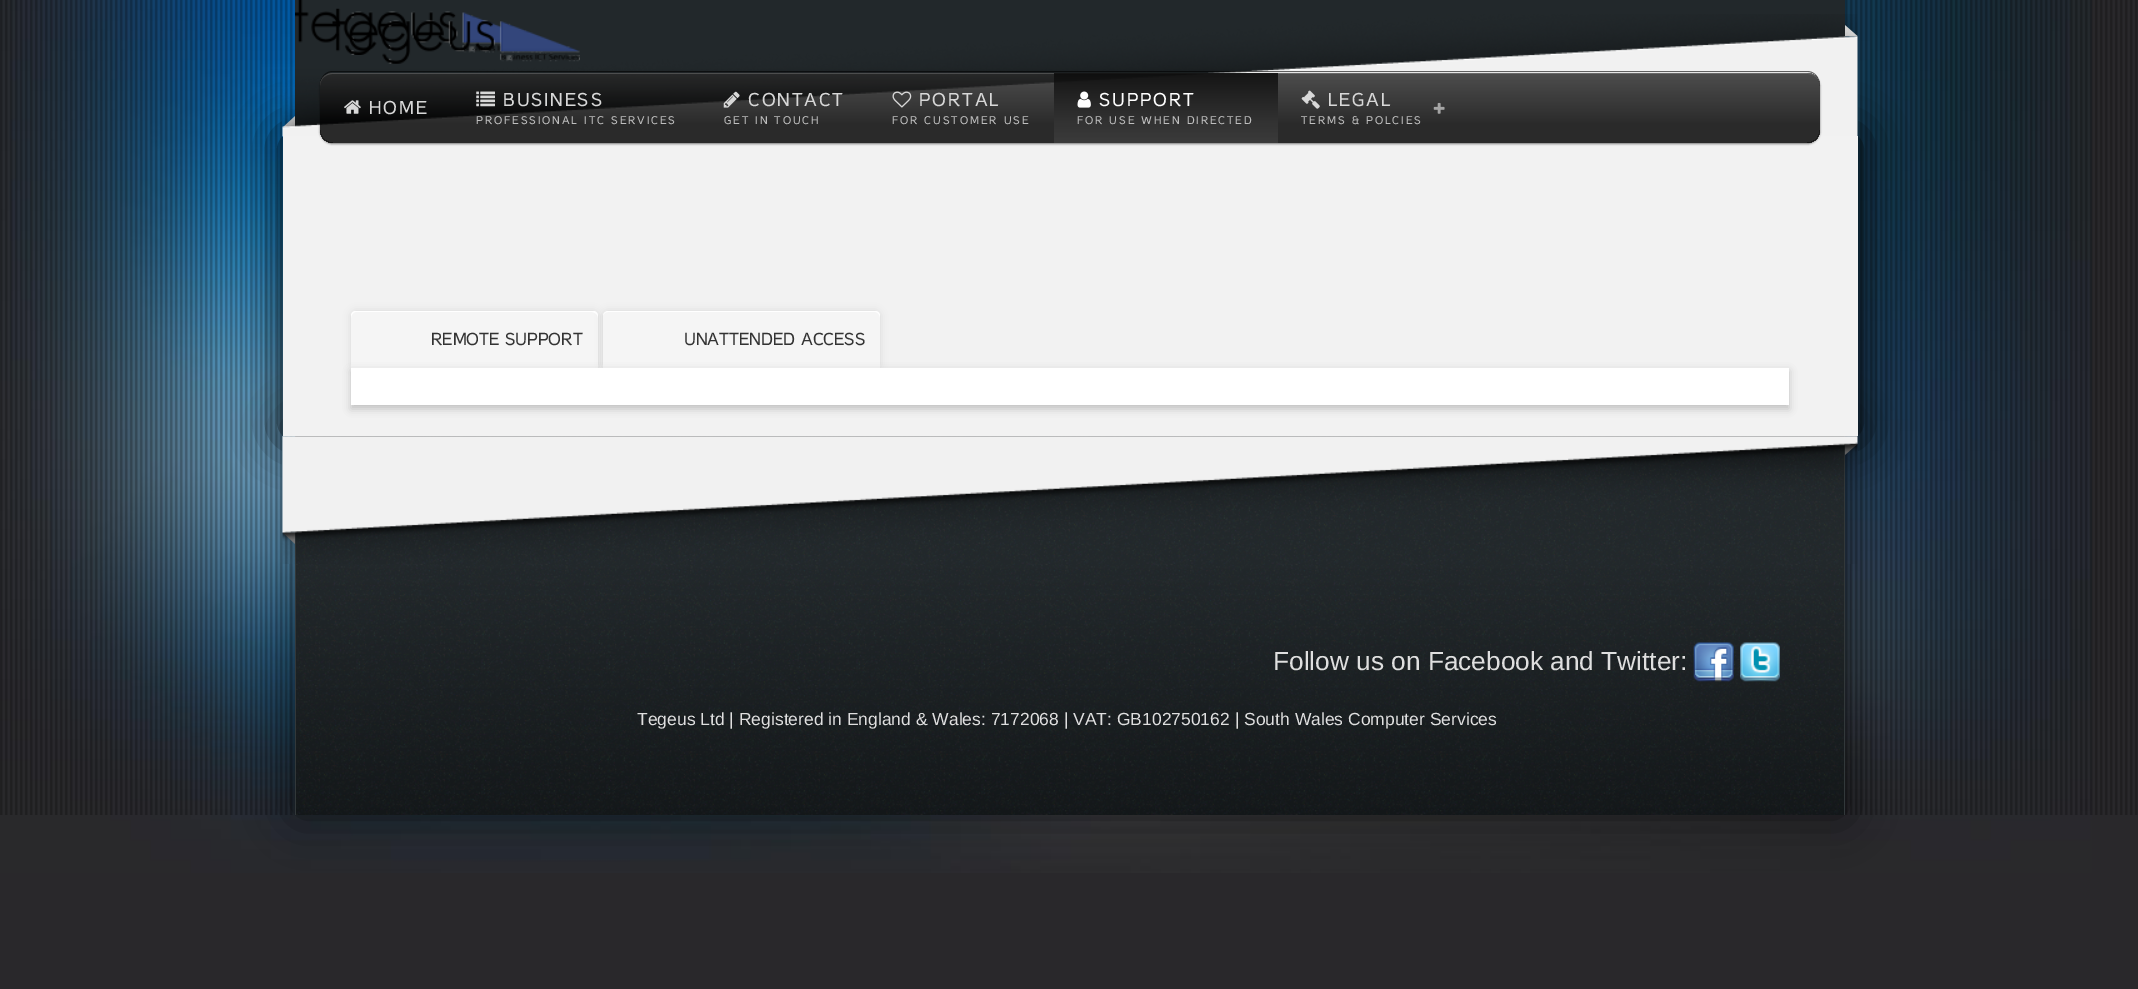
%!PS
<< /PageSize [2138 989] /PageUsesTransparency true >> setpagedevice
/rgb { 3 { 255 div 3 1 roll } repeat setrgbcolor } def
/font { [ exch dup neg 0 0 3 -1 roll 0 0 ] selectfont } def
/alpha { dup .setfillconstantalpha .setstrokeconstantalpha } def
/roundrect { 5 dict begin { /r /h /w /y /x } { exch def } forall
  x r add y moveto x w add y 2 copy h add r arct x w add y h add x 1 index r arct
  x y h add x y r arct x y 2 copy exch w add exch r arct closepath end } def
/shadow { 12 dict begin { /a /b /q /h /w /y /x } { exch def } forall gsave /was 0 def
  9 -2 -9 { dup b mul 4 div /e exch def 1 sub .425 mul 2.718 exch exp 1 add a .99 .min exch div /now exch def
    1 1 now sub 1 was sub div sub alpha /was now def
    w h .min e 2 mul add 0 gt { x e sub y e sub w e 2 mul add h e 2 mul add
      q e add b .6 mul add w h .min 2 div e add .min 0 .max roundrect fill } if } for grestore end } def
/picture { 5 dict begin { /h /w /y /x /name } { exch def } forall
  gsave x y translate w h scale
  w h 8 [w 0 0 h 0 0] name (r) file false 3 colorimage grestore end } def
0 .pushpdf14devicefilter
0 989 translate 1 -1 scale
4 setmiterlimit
41 40 43 rgb
0 0 2138 989 rectfill
(img/1.rgb) 0 0 2092 873 picture
(img/2.rgb) 0 0 2138 815 picture
gsave 295 0 moveto 1845 0 lineto 1845 127 lineto 295 127 lineto closepath clip newpath
<< /ShadingType 2 /ColorSpace /DeviceRGB /Coords [1070 0 1070 186] /Extend [true true] /Function << /FunctionType 3 /Domain [0 1] /Functions [<< /FunctionType 2 /Domain [0 1] /C0 [0.133 0.157 0.169] /C1 [0.133 0.157 0.169] /N 1 >> << /FunctionType 2 /Domain [0 1] /C0 [0.133 0.157 0.169] /C1 [0.075 0.09 0.098] /N 1 >>] /Bounds [0.35] /Encode [0 1 0 1] >> >> shfill grestore
(img/3.rgb) 295 0 248 55 picture
240 240 240 rgb
1857.5 36 moveto 1845 36 lineto 1845 25 lineto closepath fill
295 127.5 moveto 282.5 127.5 lineto 295 116 lineto closepath fill
0 0 0 rgb
295 424 1550 391 0 25 0.6 shadow
130 130 130 rgb
1845 444 moveto 1857.5 444 lineto 1845 455 lineto closepath fill
gsave 296 436 moveto 1844 436 lineto 1844 815 lineto 296 815 lineto closepath clip newpath
<< /ShadingType 2 /ColorSpace /DeviceRGB /Coords [1070 424 1070 815] /Extend [true true] /Function << /FunctionType 3 /Domain [0 1] /Functions [<< /FunctionType 2 /Domain [0 1] /C0 [0.133 0.157 0.169] /C1 [0.133 0.157 0.169] /N 1 >> << /FunctionType 2 /Domain [0 1] /C0 [0.133 0.157 0.169] /C1 [0.075 0.09 0.098] /N 1 >>] /Bounds [0.35] /Encode [0 1 0 1] >> >> shfill grestore
50 56 58 rgb
1844 436 1 379 rectfill
295 436 1 379 rectfill
(img/14.rgb) 296 436 1548 379 picture
0 0 0 rgb
283 136 1575 300 0 25 0.9 shadow
242 242 242 rgb
283 136 1575 300 rectfill
(img/12.rgb) 282 14 1576 123 picture
(img/4.rgb) 332 8 248 56 picture
gsave
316 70 moveto 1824 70 lineto 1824 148 lineto 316 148 lineto closepath 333 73 moveto 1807 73 lineto 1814 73 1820 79 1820 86 curveto 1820 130 lineto 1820 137 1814 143 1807 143 curveto 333 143 lineto 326 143 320 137 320 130 curveto 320 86 lineto 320 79 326 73 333 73 curveto closepath eoclip newpath
0 0 0 rgb
320 74 1500 70 13 1 0.5 shadow
grestore
0.6 alpha
0 0 0 rgb
333 71 moveto 325 71 320 78 320 85 curveto 320 78 326 72 332 72 curveto 1808 72 lineto 1814 72 1820 78 1820 85 curveto 1820 78 1815 71 1807 71 curveto closepath fill
0.42 alpha
320 73 1500 70 13 roundrect fill
0.7 alpha
gsave 320 73 1500 70 13 roundrect clip newpath
<< /ShadingType 2 /ColorSpace /DeviceRGB /Coords [1070 72 1070 143] /Extend [true true] /Function << /FunctionType 3 /Domain [0 1] /Functions [<< /FunctionType 2 /Domain [0 1] /C0 [0.2 0.2 0.2] /C1 [0 0 0] /N 1 >> << /FunctionType 2 /Domain [0 1] /C0 [0 0 0] /C1 [0 0 0] /N 1 >>] /Bounds [0.75] /Encode [0 1 0 1] >> >> shfill grestore
0.2 alpha
225 225 225 rgb
332 74 moveto 1808 74 lineto 1814 74 1820 79 1820 86 curveto 1820 79 1814 73 1807 73 curveto 333 73 lineto 326 73 320 79 320 86 curveto 320 79 326 74 332 74 curveto closepath fill
1 alpha
(img/5.rgb) 344 100 17 14 picture
(img/6.rgb) 476 91 19 16 picture
(img/7.rgb) 723 91 17 17 picture
(img/8.rgb) 892 91 20 17 picture
0.42 alpha
54 54 54 rgb
1054 73 224 70 rectfill
0.7 alpha
gsave 1054 73 moveto 1278 73 lineto 1278 143 lineto 1054 143 lineto closepath clip newpath
<< /ShadingType 2 /ColorSpace /DeviceRGB /Coords [1166 72 1166 143] /Extend [true true] /Function << /FunctionType 3 /Domain [0 1] /Functions [<< /FunctionType 2 /Domain [0 1] /C0 [0 0 0] /C1 [0.2 0.2 0.2] /N 1 >> << /FunctionType 2 /Domain [0 1] /C0 [0.2 0.2 0.2] /C1 [0.251 0.251 0.251] /N 1 >>] /Bounds [0.7] /Encode [0 1 0 1] >> >> shfill grestore
1 alpha
(img/9.rgb) 1077 91 14 17 picture
(img/10.rgb) 1301 90 19 19 picture
(img/11.rgb) 1433 102 12 12 picture
0 0 0 rgb
351 311 247 58 5 4 0.1 shadow
245 245 245 rgb
356 311 moveto 593 311 lineto 596 311 598 313 598 316 curveto 598 369 lineto 351 369 lineto 351 316 lineto 351 313 353 311 356 311 curveto closepath fill
255 255 255 rgb
356 312 moveto 592 312 lineto 595 312 598 315 598 318 curveto 598 315 598 312 594 311 curveto 355 311 lineto 351 312 351 315 351 318 curveto 351 315 353 312 356 312 curveto closepath fill
0 0 0 rgb
603 311 277 58 5 4 0.1 shadow
245 245 245 rgb
608 311 moveto 875 311 lineto 878 311 880 313 880 316 curveto 880 369 lineto 603 369 lineto 603 316 lineto 603 313 605 311 608 311 curveto closepath fill
255 255 255 rgb
608 312 moveto 875 312 lineto 878 312 880 315 880 318 curveto 880 316 lineto 880 313 878 311 875 311 curveto 608 311 lineto 606 311 604 313 603 315 curveto 604 313 606 312 608 312 curveto closepath fill
0 0 0 rgb
351 371 1438 38 0 4 0.2 shadow
255 255 255 rgb
351 368 1438 37 rectfill
130 130 130 rgb
282.5 532.5 moveto 295 532.5 lineto 295 544 lineto closepath fill
(img/13.rgb) 282 436 1576 128 picture
(img/15.rgb) 1693 642 41 40 picture
(img/16.rgb) 1740 642 40 40 picture
/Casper-Regular 18.75 font
216 216 216 rgb
369 114 moveto 1.9 0 (HOME) ashow
503 106 moveto 1.9 0 (BUSINESS) ashow
/Casper-Regular 11.25 font
191 191 191 rgb
476 124 moveto 1.9 0 (PROFESSIONAL ITC SERVICES) ashow
/Casper-Regular 18.75 font
216 216 216 rgb
748 106 moveto 1.9 0 (CONTACT) ashow
/Casper-Regular 11.25 font
191 191 191 rgb
724 124 moveto 1.9 0 (GET IN TOUCH) ashow
/Casper-Regular 18.75 font
216 216 216 rgb
919 106 moveto 1.9 0 (PORTAL) ashow
/Casper-Regular 11.25 font
191 191 191 rgb
892 124 moveto 1.9 0 (FOR CUSTOMER USE) ashow
/Casper-Regular 18.75 font
255 255 255 rgb
1099 106 moveto 1.9 0 (SUPPORT) ashow
/Casper-Regular 11.25 font
191 191 191 rgb
1077 124 moveto 1.9 0 (FOR USE WHEN DIRECTED) ashow
/Casper-Regular 18.75 font
216 216 216 rgb
1328 106 moveto 1.9 0 (LEGAL) ashow
/Casper-Regular 11.25 font
191 191 191 rgb
1301 124 moveto 1.9 0 (TERMS & POLCIES) ashow
/Casper-Regular 17.5 font
51 51 51 rgb
431 345 moveto (REMOTE SUPPORT) show
684 345 moveto (UNATTENDED ACCESS) show
/LiberationSans-Regular 26.25 font
223 223 223 rgb
1273 670 moveto (Follow us on Facebook and Twitter:) show
/LiberationSans-Regular 17.5 font
637 725 moveto (Tegeus Ltd | Registered in England & Wales: 7172068 | VAT: GB102750162 | South Wales Computer Services) show
.poppdf14devicefilter showpage
